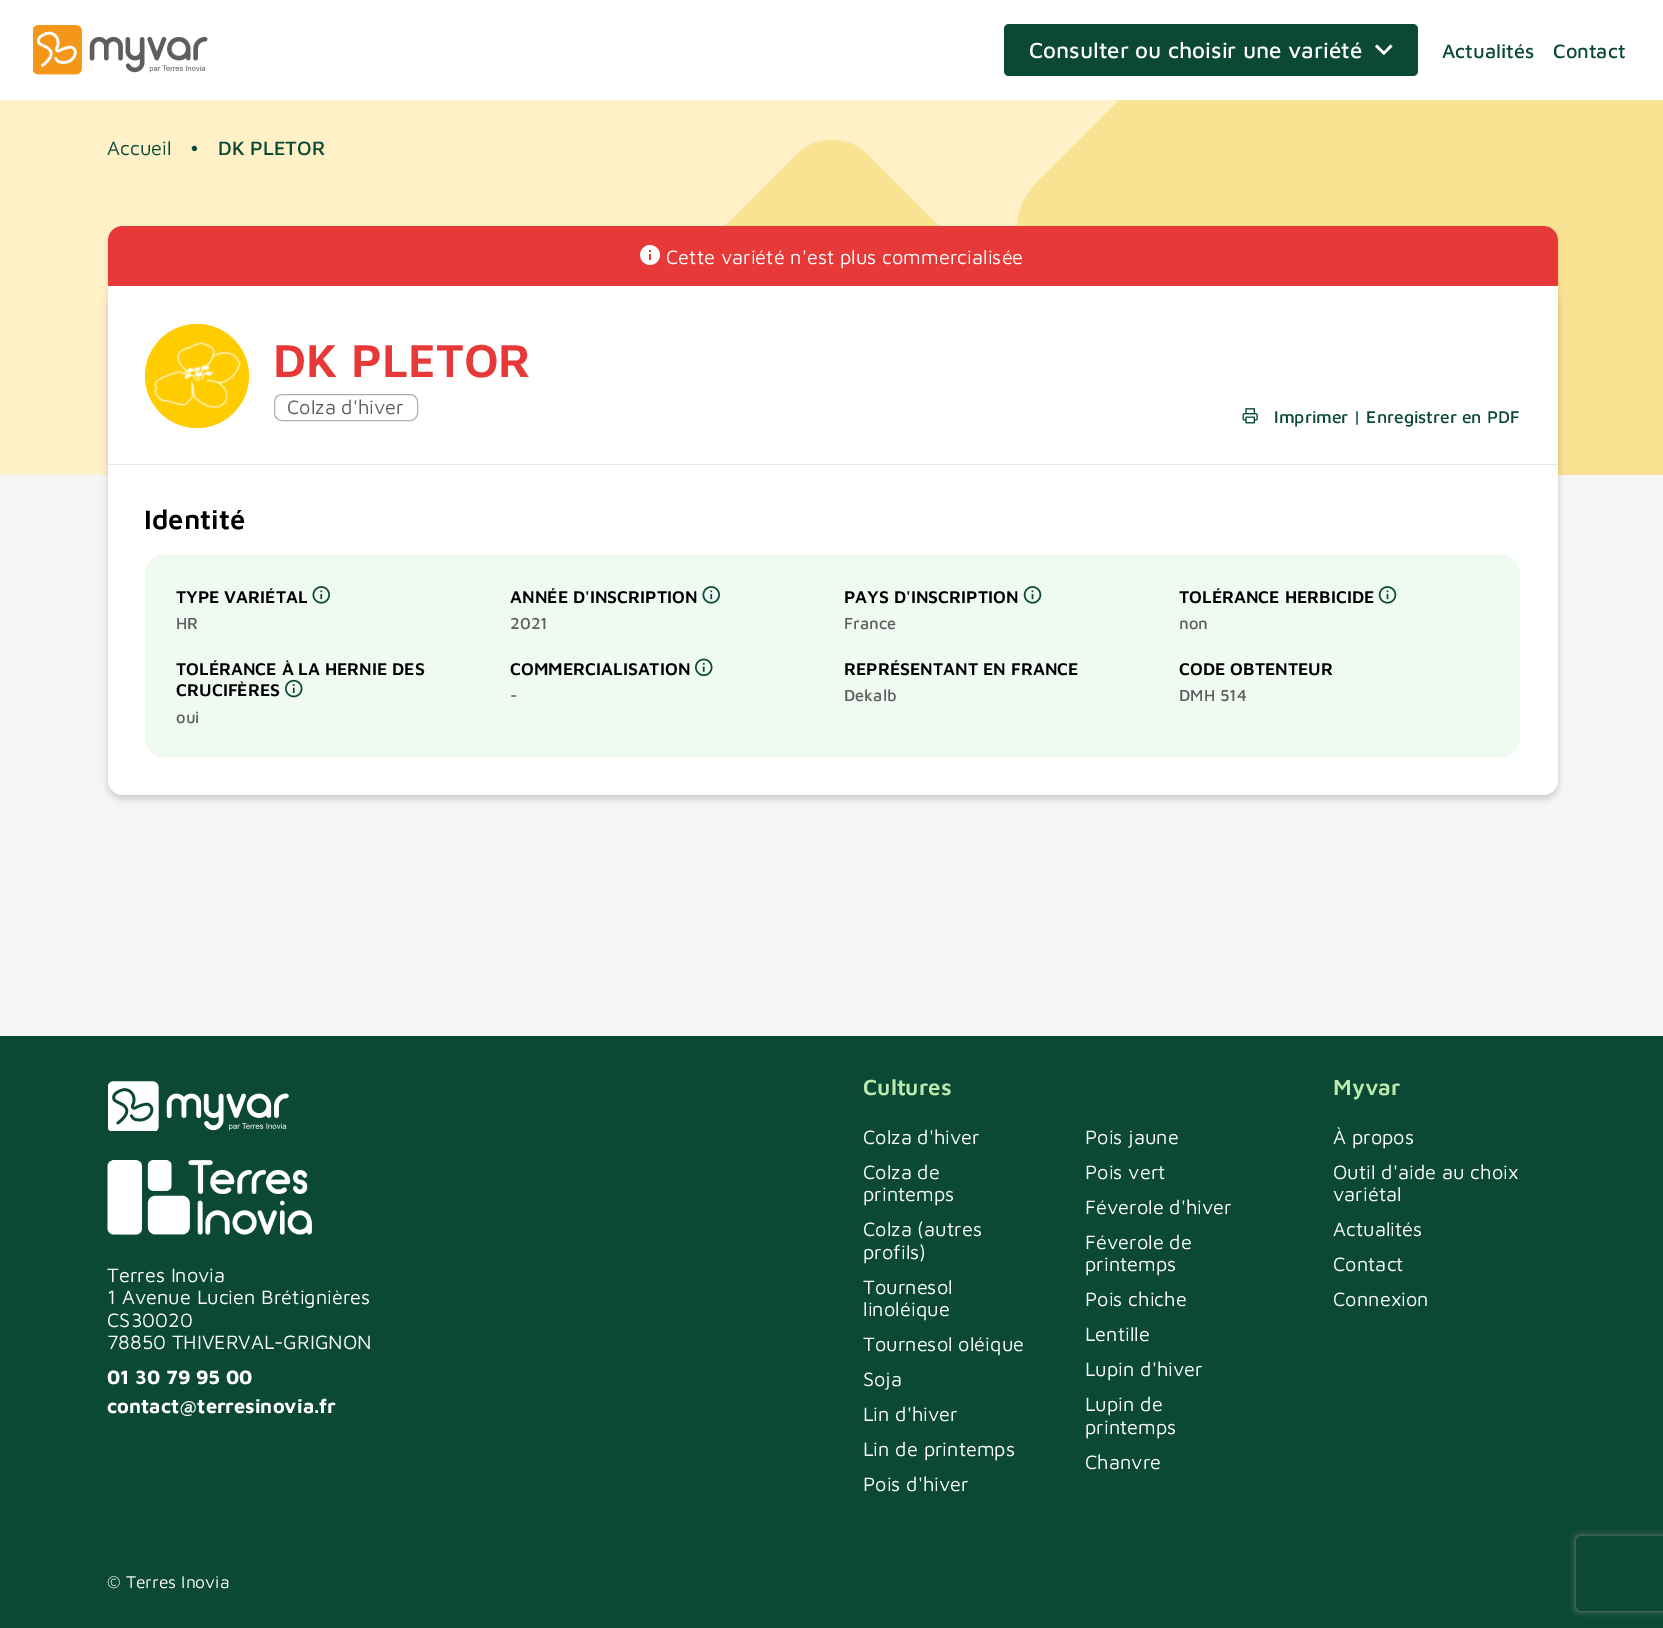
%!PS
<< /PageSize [1663 1628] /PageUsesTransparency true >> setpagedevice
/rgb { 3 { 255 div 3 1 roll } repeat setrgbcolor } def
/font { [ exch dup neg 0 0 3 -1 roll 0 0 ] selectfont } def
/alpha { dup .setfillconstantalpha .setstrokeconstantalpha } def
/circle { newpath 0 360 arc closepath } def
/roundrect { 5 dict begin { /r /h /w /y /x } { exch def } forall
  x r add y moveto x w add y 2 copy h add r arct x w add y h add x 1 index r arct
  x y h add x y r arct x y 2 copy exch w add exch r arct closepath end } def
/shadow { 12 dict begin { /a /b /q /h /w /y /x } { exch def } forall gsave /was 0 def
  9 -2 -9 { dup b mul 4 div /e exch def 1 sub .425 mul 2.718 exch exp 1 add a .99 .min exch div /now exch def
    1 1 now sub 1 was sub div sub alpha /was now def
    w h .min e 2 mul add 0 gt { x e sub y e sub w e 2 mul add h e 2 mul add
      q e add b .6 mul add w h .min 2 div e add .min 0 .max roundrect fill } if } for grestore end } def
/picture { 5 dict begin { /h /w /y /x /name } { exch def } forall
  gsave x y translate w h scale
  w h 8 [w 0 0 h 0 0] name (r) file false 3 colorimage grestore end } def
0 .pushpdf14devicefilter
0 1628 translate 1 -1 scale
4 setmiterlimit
246 245 245 rgb
0 0 1663 1628 rectfill
255 255 255 rgb
0 0 1663 100 rectfill
(img/1.rgb) 33 25 175 50 picture
11 73 52 rgb
1004 24 414 52 5 roundrect fill
255 255 255 rgb
1384 51.5 moveto 1390.5 44.5 lineto 1392.5 46.5 lineto 1384 55 lineto 1375 46.5 lineto 1377 44.5 lineto closepath fill
254 240 199 rgb
0 100 1119 375 rectfill
249 226 146 rgb
655 296 moveto 797 154 lineto 816 135 848 135 867 154 curveto 1009 296 lineto 1028 315 1028 347 1009 367 curveto 867 508 lineto 848 528 816 528 797 508 curveto 655 367 lineto 636 347 636 315 655 296 curveto closepath fill
gsave
0 100 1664 375 rectclip
1037 182 moveto 1601 -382 lineto 1628 -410 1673 -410 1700 -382 curveto 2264 182 lineto 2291 209 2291 253 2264 281 curveto 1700 845 lineto 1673 872 1628 872 1601 845 curveto 1037 281 lineto 1010 253 1010 209 1037 182 curveto closepath fill
grestore
0 0 0 rgb
108 230 1450 569 15 3 0.08 shadow
255 255 255 rgb
108 226 1450 569 15 roundrect fill
232 57 57 rgb
123 226 moveto 1543 226 lineto 1551.5 226 1558 232.5 1558 241 curveto 1558 286 lineto 108 286 lineto 108 241 lineto 108 232.5 114.5 226 123 226 curveto closepath fill
(img/2.rgb) 640 245 20 20 picture
0 0 0 rgb
108 290 1450 509 15 3 0.08 shadow
255 255 255 rgb
108 286 1450 509 15 roundrect fill
255 204 0 rgb
197 376 52 circle fill
(img/3.rgb) 153 342 88 66 picture
176 176 176 rgb
274.5 394.5 143 26 7.5 roundrect stroke
(img/4.rgb) 1242 408 16 16 picture
231 230 230 rgb
108 464 1450 1 rectfill
239 250 243 rgb
145 554 1375 204 20 roundrect fill
(img/5.rgb) 312 586 18 18 picture
(img/5.rgb) 702 586 18 18 picture
(img/6.rgb) 1023 586 19 18 picture
(img/6.rgb) 1378 586 19 18 picture
(img/7.rgb) 285 679 18 19 picture
(img/8.rgb) 695 658 18 19 picture
11 73 52 rgb
0 1036 1663 592 rectfill
(img/9.rgb) 108 1081 181 50 picture
(img/10.rgb) 107 1160 205 75 picture
gsave
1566 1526 moveto 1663 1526 lineto 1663 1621 lineto 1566 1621 lineto closepath 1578.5 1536 moveto 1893.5 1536 lineto 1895 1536 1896 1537 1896 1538.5 curveto 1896 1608.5 lineto 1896 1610 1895 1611 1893.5 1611 curveto 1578.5 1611 lineto 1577 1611 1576 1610 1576 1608.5 curveto 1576 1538.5 lineto 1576 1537 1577 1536 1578.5 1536 curveto closepath eoclip newpath
128 128 128 rgb
1576 1536 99 75 2.5 3 1 shadow
grestore
/MavenPro-Medium 22.5 font
255 255 255 rgb
1029 58 moveto (Consulter ou choisir une variété) show
/MavenPro-Medium 20 font
11 73 52 rgb
1442 58 moveto (Actualités) show
1553 58 moveto (Contact) show
/MavenPro-Regular 20 font
107 155 moveto (Accueil) show
/MavenPro-Medium 20 font
190 155 moveto (•) show
218 155 moveto (DK PLETOR) show
/MavenPro-Regular 20 font
255 255 255 rgb
666 264 moveto (Cette variété n'est plus commercialisée) show
/MavenPro-SemiBold 47.5 font
232 57 57 rgb
273 377 moveto (DK PLETOR) show
/MavenPro-Regular 20 font
95 94 94 rgb
287 414 moveto (Colza d'hiver) show
/MavenPro-Medium 17.5 font
11 73 52 rgb
1274 423 moveto (Imprimer | Enregistrer en PDF) show
/MavenPro-SemiBold 27.5 font
0 0 0 rgb
144 529 moveto (Identité) show
/MavenPro-SemiBold 17.5 font
176 603 moveto (TYPE VARIÉTAL) show
/MavenPro-Medium 16.5 font
95 94 94 rgb
176 629 moveto (HR) show
/MavenPro-SemiBold 17.5 font
0 0 0 rgb
510 603 moveto (ANNÉE D'INSCRIPTION) show
/MavenPro-Medium 16.5 font
95 94 94 rgb
510 629 moveto (2021) show
/MavenPro-SemiBold 17.5 font
0 0 0 rgb
844 603 moveto (PAYS D'INSCRIPTION) show
/MavenPro-Medium 16.5 font
95 94 94 rgb
844 629 moveto (France) show
/MavenPro-SemiBold 17.5 font
0 0 0 rgb
1179 603 moveto (TOLÉRANCE HERBICIDE) show
/MavenPro-Medium 16.5 font
95 94 94 rgb
1179 629 moveto (non) show
/MavenPro-SemiBold 17.5 font
0 0 0 rgb
176 675 moveto (TOLÉRANCE À LA HERNIE DES) show
176 696 moveto (CRUCIFÈRES) show
/MavenPro-Medium 16.5 font
95 94 94 rgb
176 723 moveto (oui) show
/MavenPro-SemiBold 17.5 font
0 0 0 rgb
510 675 moveto (COMMERCIALISATION) show
/MavenPro-Medium 16.5 font
95 94 94 rgb
510 701 moveto (-) show
/MavenPro-SemiBold 17.5 font
0 0 0 rgb
844 675 moveto (REPRÉSENTANT EN FRANCE) show
/MavenPro-Medium 16.5 font
95 94 94 rgb
844 701 moveto (Dekalb) show
/MavenPro-SemiBold 17.5 font
0 0 0 rgb
1179 675 moveto (CODE OBTENTEUR) show
/MavenPro-Medium 16.5 font
95 94 94 rgb
1179 701 moveto (DMH 514) show
/MavenPro-SemiBold 22.5 font
187 234 172 rgb
863 1095 moveto (Cultures) show
/MavenPro-Regular 20 font
255 255 255 rgb
[
  [(Colza d'hiver) 863 1144]
  [(Pois jaune) 1085 1144]
  [(Colza de) 863 1179]
  [(printemps) 863 1201]
  [(Pois vert) 1085 1179]
  [(Féverole d'hiver) 1085 1214]
  [(Colza \(autres) 863 1236]
  [(profils\)) 863 1259]
  [(Féverole de) 1085 1249]
  [(printemps) 1085 1271]
  [(Tournesol) 863 1294]
  [(linoléique) 863 1316]
  [(Pois chiche) 1085 1306]
  [(Lentille) 1085 1341]
  [(Tournesol oléique) 863 1351]
  [(Soja) 863 1386]
  [(Lupin d'hiver) 1085 1376]
  [(Lin d'hiver) 863 1421]
  [(Lupin de) 1085 1411]
  [(printemps) 1085 1434]
  [(Lin de printemps) 863 1456]
  [(Chanvre) 1085 1469]
  [(Pois d'hiver) 863 1491]
] { aload pop moveto show } forall
/MavenPro-SemiBold 22.5 font
187 234 172 rgb
1333 1095 moveto (Myvar) show
/MavenPro-Regular 20 font
255 255 255 rgb
[
  [(À propos) 1333 1144]
  [(Outil d'aide au choix) 1333 1179]
  [(variétal) 1333 1201]
  [(Actualités) 1333 1236]
  [(Contact) 1333 1271]
  [(Connexion) 1333 1306]
  [(Terres Inovia) 107 1282]
  [(1 Avenue Lucien Brétignières) 107 1304]
  [(CS30020) 107 1327]
  [(78850 THIVERVAL-GRIGNON) 107 1349]
] { aload pop moveto show } forall
/MavenPro-Bold 20 font
107 1384 moveto (01 30 79 95 00) show
107 1413 moveto (contact@terresinovia.fr) show
/MavenPro-Regular 17.5 font
107 1588 moveto (© Terres Inovia) show
.poppdf14devicefilter showpage
